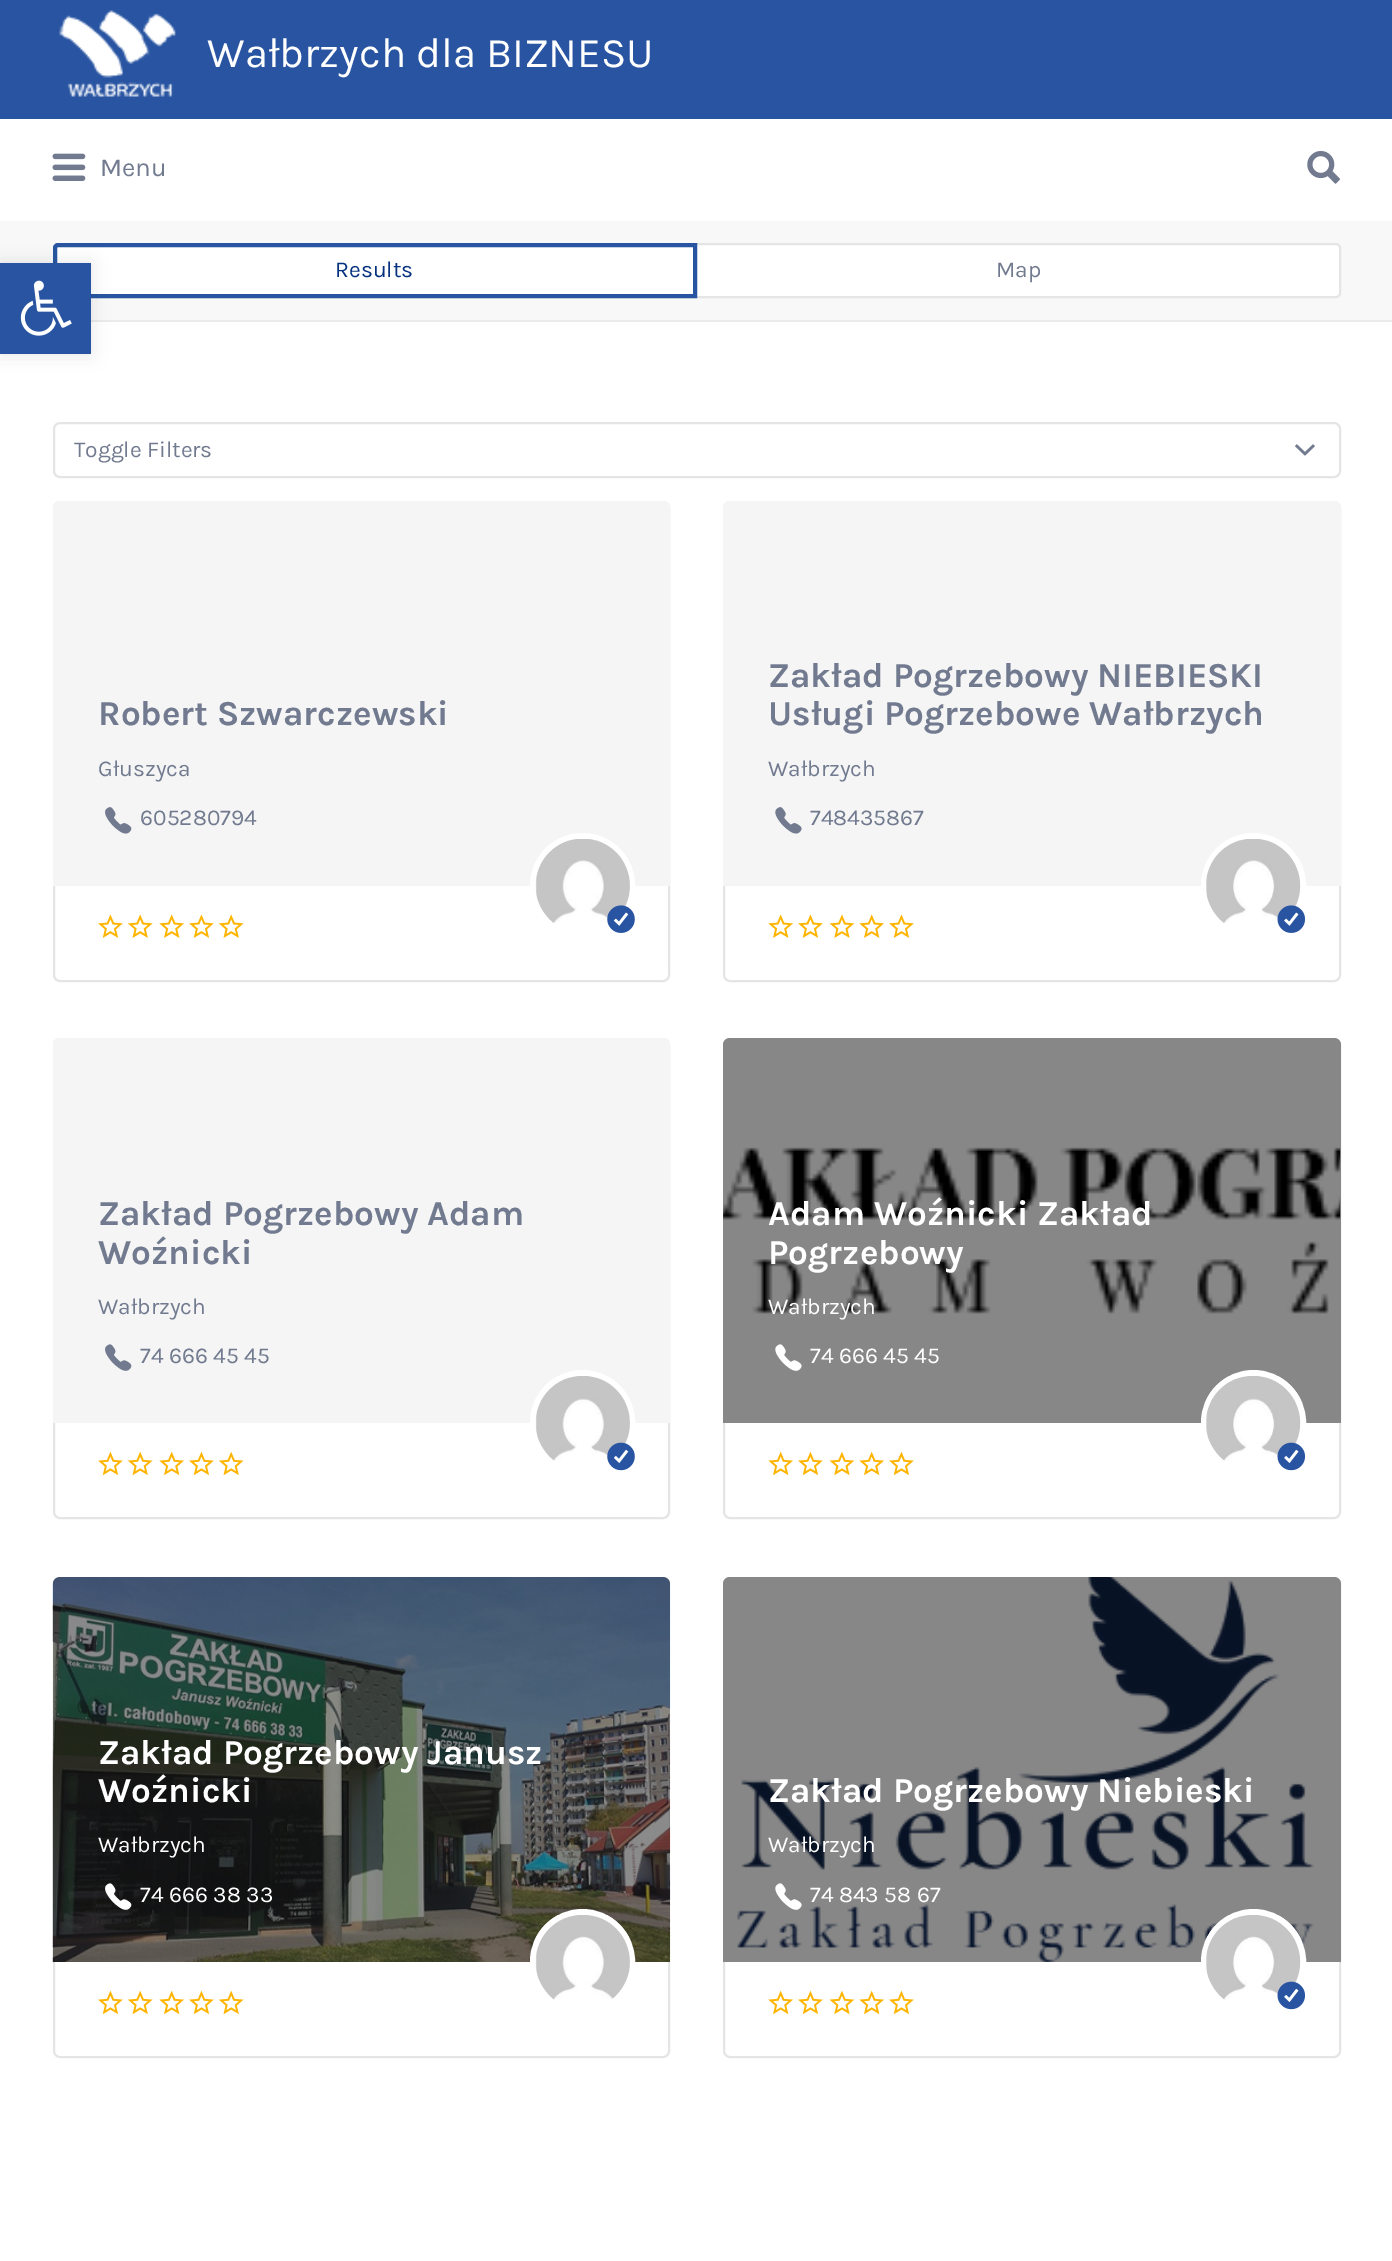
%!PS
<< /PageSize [1392 2261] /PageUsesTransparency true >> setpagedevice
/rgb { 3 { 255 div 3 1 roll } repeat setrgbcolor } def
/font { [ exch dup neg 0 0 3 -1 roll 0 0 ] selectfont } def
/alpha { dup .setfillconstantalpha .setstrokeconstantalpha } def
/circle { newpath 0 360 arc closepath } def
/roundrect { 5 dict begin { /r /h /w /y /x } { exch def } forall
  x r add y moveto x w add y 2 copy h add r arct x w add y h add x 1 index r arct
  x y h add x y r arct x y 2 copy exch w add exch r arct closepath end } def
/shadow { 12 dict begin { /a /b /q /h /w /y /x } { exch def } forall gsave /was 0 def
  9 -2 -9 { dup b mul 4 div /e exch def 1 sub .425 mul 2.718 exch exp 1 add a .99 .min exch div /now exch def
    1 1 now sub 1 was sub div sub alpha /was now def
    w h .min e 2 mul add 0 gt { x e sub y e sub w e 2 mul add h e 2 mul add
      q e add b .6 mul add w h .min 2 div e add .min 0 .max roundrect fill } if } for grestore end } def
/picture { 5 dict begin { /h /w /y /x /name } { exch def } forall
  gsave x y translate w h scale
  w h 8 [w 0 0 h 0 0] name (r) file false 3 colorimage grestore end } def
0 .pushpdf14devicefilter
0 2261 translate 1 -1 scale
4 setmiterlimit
255 255 255 rgb
0 0 1392 2261 rectfill
235 235 235 rgb
91 320 1301 2 rectfill
248 248 248 rgb
0 221 1392 99 rectfill
255 255 255 rgb
54 244 1286 53 4 roundrect gsave fill grestore
229 229 229 rgb
2 setlinewidth
stroke
40 84 161 rgb
4 setlinewidth
58 245 moveto 695 245 lineto 695 296 lineto 58 296 lineto 56.5 296 55 294.5 55 293 curveto 55 248 lineto 55 246.5 56.5 245 58 245 curveto closepath stroke
0 0 0 rgb
0 263 91 91 0 9 0.1 shadow
40 84 161 rgb
0 263 91 91 rectfill
(img/1.rgb) 20 280 52 56 picture
0 0 1392 119 rectfill
(img/2.rgb) 59 10 117 87 picture
(img/3.rgb) 52 153 34 28 picture
(img/4.rgb) 1307 150 33 34 picture
229 229 229 rgb
2 setlinewidth
54 423 1286 54 6 roundrect stroke
(img/5.rgb) 1295 444 20 12 picture
54 502 615 479 6 roundrect stroke
245 245 245 rgb
60 501 moveto 663 501 lineto 667 501 670 504 670 508 curveto 670 886 lineto 53 886 lineto 53 508 lineto 53 504 56 501 60 501 curveto closepath fill
(img/6.rgb) 105 807 27 27 picture
255 255 255 rgb
582.5 885.5 50 circle gsave fill grestore
5 setlinewidth
stroke
(img/7.rgb) 535 839 95 84 picture
(img/8.rgb) 98 914 25 24 picture
(img/9.rgb) 127 914 26 24 picture
(img/10.rgb) 159 914 25 24 picture
(img/8.rgb) 189 914 25 24 picture
(img/9.rgb) 218 914 26 24 picture
627 922 14 circle fill
(img/11.rgb) 607 905 28 28 picture
229 229 229 rgb
2 setlinewidth
724 502 616 479 6 roundrect stroke
245 245 245 rgb
730 501 moveto 1334 501 lineto 1338 501 1341 504 1341 508 curveto 1341 886 lineto 723 886 lineto 723 508 lineto 723 504 726 501 730 501 curveto closepath fill
(img/12.rgb) 775 807 27 27 picture
255 255 255 rgb
1253.5 885.5 50 circle gsave fill grestore
5 setlinewidth
stroke
(img/13.rgb) 1206 839 95 84 picture
(img/10.rgb) 768 914 25 24 picture
(img/8.rgb) 798 914 25 24 picture
(img/14.rgb) 829 914 26 24 picture
(img/10.rgb) 859 914 25 24 picture
(img/8.rgb) 889 914 25 24 picture
1297 922 14 circle fill
(img/15.rgb) 1277 905 29 28 picture
229 229 229 rgb
2 setlinewidth
54 1039 615 479 6 roundrect stroke
245 245 245 rgb
60 1038 moveto 663 1038 lineto 667 1038 670 1041 670 1045 curveto 670 1423 lineto 53 1423 lineto 53 1045 lineto 53 1041 56 1038 60 1038 curveto closepath fill
(img/16.rgb) 105 1344 27 27 picture
255 255 255 rgb
582.5 1422.5 50 circle gsave fill grestore
5 setlinewidth
stroke
(img/17.rgb) 535 1376 95 85 picture
(img/18.rgb) 98 1451 25 25 picture
(img/19.rgb) 127 1451 26 25 picture
(img/20.rgb) 159 1451 25 25 picture
(img/18.rgb) 189 1451 25 25 picture
(img/19.rgb) 218 1451 26 25 picture
627 1460 14 circle fill
(img/21.rgb) 607 1442 28 29 picture
229 229 229 rgb
2 setlinewidth
724 1039 616 479 6 roundrect stroke
245 245 245 rgb
730 1038 moveto 1334 1038 lineto 1338 1038 1341 1041 1341 1045 curveto 1341 1423 lineto 723 1423 lineto 723 1045 lineto 723 1041 726 1038 730 1038 curveto closepath fill
(img/22.rgb) 723 1147 618 167 picture
0.45 alpha
0 0 0 rgb
730 1038 moveto 1334 1038 lineto 1338 1038 1341 1041 1341 1045 curveto 1341 1423 lineto 723 1423 lineto 723 1045 lineto 723 1041 726 1038 730 1038 curveto closepath fill
1 alpha
(img/23.rgb) 775 1344 27 27 picture
255 255 255 rgb
1253.5 1422.5 50 circle gsave fill grestore
5 setlinewidth
stroke
(img/24.rgb) 1206 1376 95 85 picture
(img/20.rgb) 768 1451 25 25 picture
(img/18.rgb) 798 1451 25 25 picture
(img/25.rgb) 829 1451 26 25 picture
(img/20.rgb) 859 1451 25 25 picture
(img/18.rgb) 889 1451 25 25 picture
1297 1460 14 circle fill
(img/26.rgb) 1277 1442 29 29 picture
229 229 229 rgb
2 setlinewidth
54 1578 615 479 6 roundrect stroke
245 245 245 rgb
60 1577 moveto 663 1577 lineto 667 1577 670 1580 670 1584 curveto 670 1962 lineto 53 1962 lineto 53 1584 lineto 53 1580 56 1577 60 1577 curveto closepath fill
(img/27.rgb) 52 1577 619 385 picture
0.45 alpha
0 0 0 rgb
60 1577 moveto 663 1577 lineto 667 1577 670 1580 670 1584 curveto 670 1962 lineto 53 1962 lineto 53 1584 lineto 53 1580 56 1577 60 1577 curveto closepath fill
1 alpha
(img/28.rgb) 105 1883 27 27 picture
(img/18.rgb) 98 1990 25 25 picture
(img/19.rgb) 127 1990 26 25 picture
(img/20.rgb) 159 1990 25 25 picture
(img/18.rgb) 189 1990 25 25 picture
(img/19.rgb) 218 1990 26 25 picture
255 255 255 rgb
582.5 1961.5 50 circle gsave fill grestore
5 setlinewidth
stroke
(img/29.rgb) 535 1915 95 85 picture
229 229 229 rgb
2 setlinewidth
724 1578 616 479 6 roundrect stroke
245 245 245 rgb
730 1577 moveto 1334 1577 lineto 1338 1577 1341 1580 1341 1584 curveto 1341 1962 lineto 723 1962 lineto 723 1584 lineto 723 1580 726 1577 730 1577 curveto closepath fill
(img/30.rgb) 737 1577 577 385 picture
0.45 alpha
0 0 0 rgb
730 1577 moveto 1334 1577 lineto 1338 1577 1341 1580 1341 1584 curveto 1341 1962 lineto 723 1962 lineto 723 1584 lineto 723 1580 726 1577 730 1577 curveto closepath fill
1 alpha
(img/23.rgb) 775 1883 27 27 picture
255 255 255 rgb
1253.5 1961.5 50 circle gsave fill grestore
5 setlinewidth
stroke
(img/31.rgb) 1206 1915 95 85 picture
(img/20.rgb) 768 1990 25 25 picture
(img/18.rgb) 798 1990 25 25 picture
(img/25.rgb) 829 1990 26 25 picture
(img/20.rgb) 859 1990 25 25 picture
(img/18.rgb) 889 1990 25 25 picture
1297 1999 14 circle fill
(img/32.rgb) 1277 1981 29 29 picture
/Karla-Regular 42 font
207 67 moveto (Wałbrzych dla BIZNESU) show
/Karla-Regular 26 font
113 122 143 rgb
100 176 moveto (Menu) show
/Karla-Regular 22.75 font
5 49 126 rgb
335 277 moveto (Results) show
113 122 143 rgb
996 277 moveto (Map) show
74 457 moveto (Toggle Filters) show
/Karla-Bold 35 font
98 725 moveto (Robert Szwarczewski) show
/Karla-Regular 22.75 font
98 776 moveto (Głuszyca) show
140 825 moveto (605280794) show
/Karla-Bold 35 font
768 687 moveto (Zakład Pogrzebowy NIEBIESKI) show
768 725 moveto (Usługi Pogrzebowe Wałbrzych) show
/Karla-Regular 22.75 font
768 776 moveto (Wałbrzych) show
810 825 moveto (748435867) show
/Karla-Bold 35 font
98 1225 moveto (Zakład Pogrzebowy Adam) show
98 1264 moveto (Woźnicki) show
/Karla-Regular 22.75 font
98 1314 moveto (Wałbrzych) show
140 1363 moveto (74 666 45 45) show
/Karla-Bold 35 font
255 255 255 rgb
768 1225 moveto (Adam Woźnicki Zakład) show
768 1264 moveto (Pogrzebowy) show
/Karla-Regular 22.75 font
768 1314 moveto (Wałbrzych) show
810 1363 moveto (74 666 45 45) show
/Karla-Bold 35 font
98 1764 moveto (Zakład Pogrzebowy Janusz) show
98 1802 moveto (Woźnicki) show
/Karla-Regular 22.75 font
98 1852 moveto (Wałbrzych) show
140 1902 moveto (74 666 38 33) show
/Karla-Bold 35 font
768 1802 moveto (Zakład Pogrzebowy Niebieski) show
/Karla-Regular 22.75 font
768 1852 moveto (Wałbrzych) show
810 1902 moveto (74 843 58 67) show
.poppdf14devicefilter showpage
